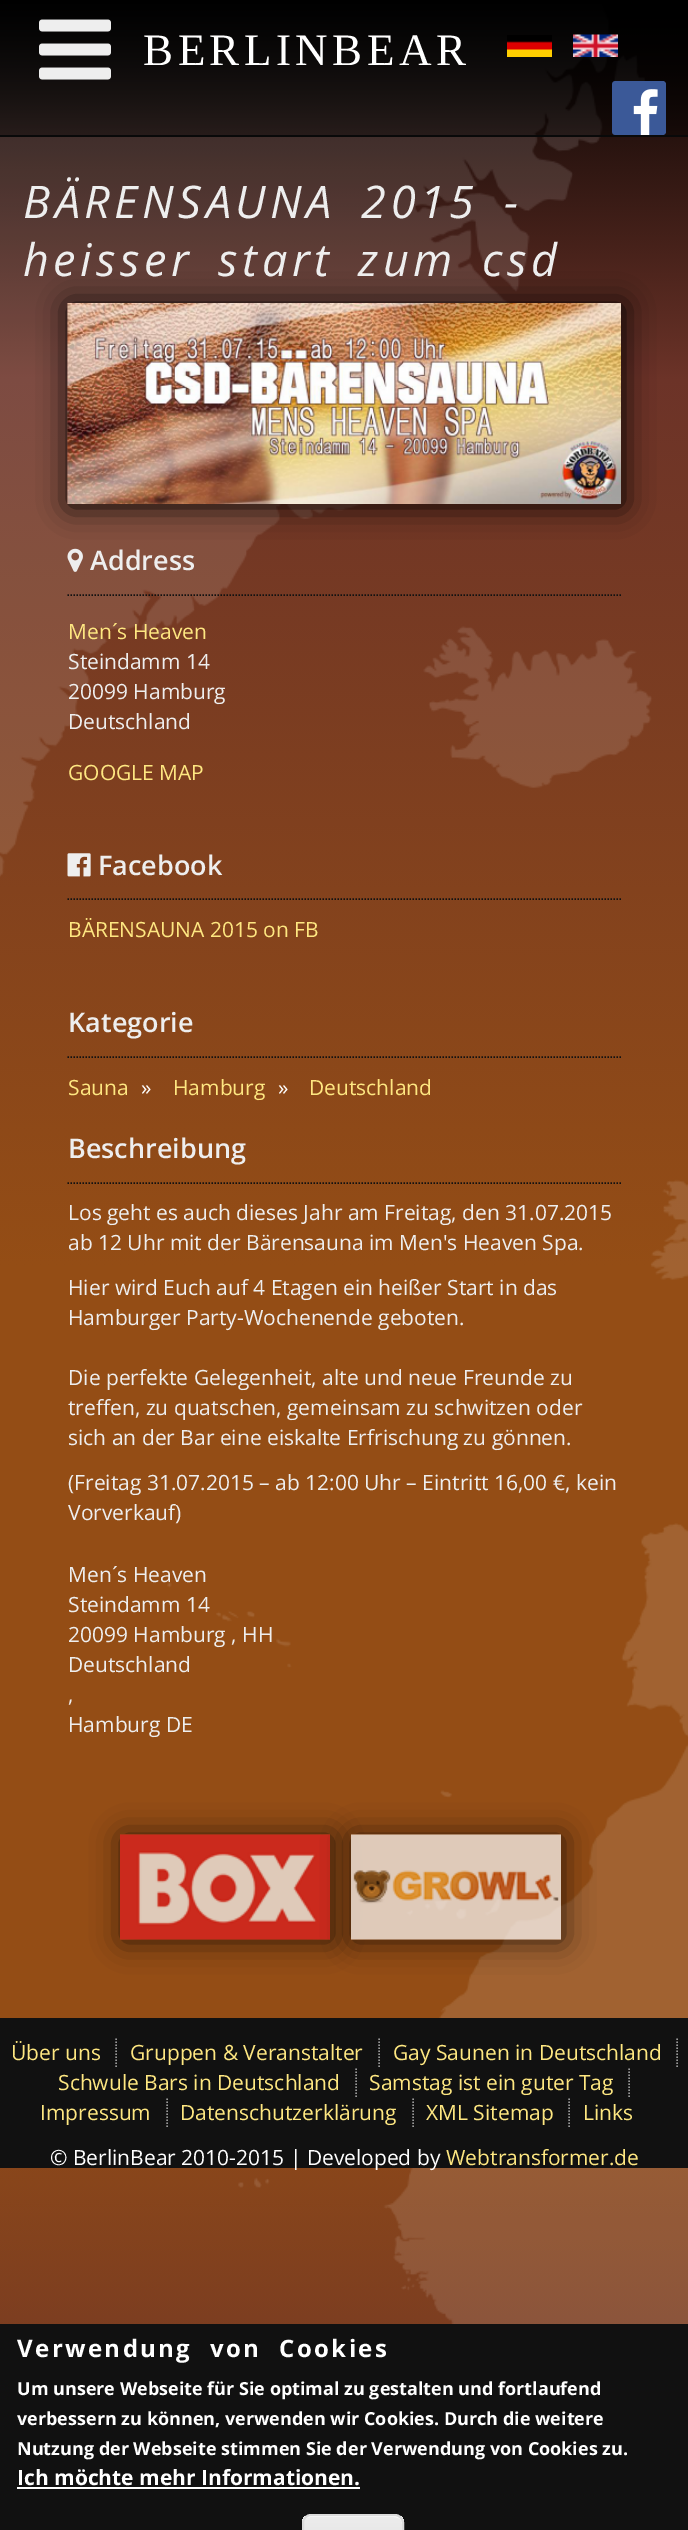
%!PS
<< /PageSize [688 2530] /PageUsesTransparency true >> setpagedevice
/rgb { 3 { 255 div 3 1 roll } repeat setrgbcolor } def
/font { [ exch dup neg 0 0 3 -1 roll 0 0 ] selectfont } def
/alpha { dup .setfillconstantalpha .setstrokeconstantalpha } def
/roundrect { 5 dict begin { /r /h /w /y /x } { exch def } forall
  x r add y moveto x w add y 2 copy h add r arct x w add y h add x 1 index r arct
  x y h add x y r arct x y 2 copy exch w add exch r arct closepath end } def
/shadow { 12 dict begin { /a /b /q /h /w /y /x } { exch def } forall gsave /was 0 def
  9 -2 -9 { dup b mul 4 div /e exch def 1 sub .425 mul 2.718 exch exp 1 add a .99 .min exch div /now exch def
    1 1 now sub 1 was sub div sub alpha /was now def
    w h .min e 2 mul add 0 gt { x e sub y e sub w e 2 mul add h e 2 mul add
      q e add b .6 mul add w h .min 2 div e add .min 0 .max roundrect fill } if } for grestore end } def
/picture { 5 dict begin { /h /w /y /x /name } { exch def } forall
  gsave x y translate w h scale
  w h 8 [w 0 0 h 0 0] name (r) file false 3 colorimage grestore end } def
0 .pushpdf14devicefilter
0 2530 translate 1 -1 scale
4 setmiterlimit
255 255 255 rgb
0 0 688 2530 rectfill
(img/1.rgb) 0 0 688 2324 picture
9 9 9 rgb
0 135 688 2 rectfill
(img/2.rgb) 39 19 72 61 picture
(img/3.rgb) 507 35 45 22 picture
(img/4.rgb) 573 34 45 23 picture
255 255 255 rgb
614 81 52 54 5 roundrect fill
(img/5.rgb) 612 81 54 54 picture
0 0 0 rgb
69 305 554 201 0 15 1 shadow
(img/6.rgb) 67 303 554 201 picture
17 17 17 rgb
1.5 setlinewidth
[1.5 1.5] 0 setdash
67.5 595 moveto 621 595 lineto stroke
(img/7.rgb) 67 548 16 24 picture
67.5 899 moveto 621 899 lineto stroke
(img/8.rgb) 67 853 24 24 picture
67.5 1057 moveto 621 1057 lineto stroke
67.5 1183 moveto 621 1183 lineto stroke
gsave
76 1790 moveto 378 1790 lineto 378 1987 lineto 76 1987 lineto closepath 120 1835 moveto 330 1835 lineto 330 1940 lineto 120 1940 lineto closepath eoclip newpath
44 23 6 rgb
122 1836 210 105 0 15 1 shadow
grestore
(img/9.rgb) 120 1834 210 106 picture
gsave
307 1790 moveto 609 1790 lineto 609 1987 lineto 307 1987 lineto closepath 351 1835 moveto 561 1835 lineto 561 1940 lineto 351 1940 lineto closepath eoclip newpath
0 0 0 rgb
353 1836 210 105 0 15 0.7 shadow
grestore
(img/10.rgb) 351 1834 210 106 picture
0 2018 688 150 rectfill
153 153 153 rgb
116 2038.5 moveto 116 2068.5 lineto stroke
379 2038.5 moveto 379 2068.5 lineto stroke
677 2038.5 moveto 677 2068.5 lineto stroke
356 2068.5 moveto 356 2098.5 lineto stroke
629 2068.5 moveto 629 2098.5 lineto stroke
167 2098.5 moveto 167 2128.5 lineto stroke
413 2098.5 moveto 413 2128.5 lineto stroke
569 2098.5 moveto 569 2128.5 lineto stroke
17 17 17 rgb
0 2324 688 206 rectfill
255 255 255 rgb
17 2487 343 2 rectfill
gsave
302 2514 102 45 9 roundrect clip newpath
gsave 302 2516 moveto 404 2516 lineto 404 2530 lineto 302 2530 lineto closepath clip newpath
<< /ShadingType 2 /ColorSpace /DeviceRGB /Coords [353 2516 353 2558] /Extend [true true] /Function << /FunctionType 3 /Domain [0 1] /Functions [<< /FunctionType 2 /Domain [0 1] /C0 [0.929 0.929 0.929] /C1 [0.929 0.929 0.929] /N 1 >> << /FunctionType 2 /Domain [0 1] /C0 [0.929 0.929 0.929] /C1 [0.875 0.875 0.875] /N 1 >>] /Bounds [0.05] /Encode [0 1 0 1] >> >> shfill grestore
grestore
310 2517 moveto 394 2517 lineto 399 2517 402 2520 402 2524 curveto 402 2520 398 2516 394 2516 curveto 311 2516 lineto 307 2516 303 2520 303 2524 curveto 303 2520 306 2517 310 2517 curveto closepath fill
220 220 220 rgb
2 setlinewidth
[] 0 setdash
303 2515 100 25 8 roundrect stroke
/LiberationSerif-Regular 45 font
255 255 255 rgb
143 65 moveto 4.5 0 (BERLINBEAR) ashow
/OpenSans-Italic 45 font
238 238 238 rgb
23 218 moveto 9 0 32 4.5 0 (BÄRENSAUNA 2015 -) awidthshow
23 276 moveto 9 0 32 4.5 0 (heisser start zum csd) awidthshow
/OpenSans-SemiBold 27 font
90 570 moveto (Address) show
/OpenSans-Regular 21 font
254 231 129 rgb
68 639 moveto (Men´s Heaven) show
238 238 238 rgb
[
  [(Steindamm 14) 68 669]
  [(20099 Hamburg) 68 699]
  [(Deutschland) 68 729]
] { aload pop moveto show } forall
254 231 129 rgb
68 780 moveto (GOOGLE MAP) show
/OpenSans-SemiBold 27 font
238 238 238 rgb
98 875 moveto (Facebook) show
/OpenSans-Regular 21 font
254 231 129 rgb
68 937 moveto (BÄRENSAUNA 2015 on FB) show
/OpenSans-SemiBold 27 font
238 238 238 rgb
68 1032 moveto (Kategorie) show
/OpenSans-Regular 21 font
254 231 129 rgb
68 1095 moveto (Sauna) show
255 255 255 rgb
141 1095 moveto (») show
254 231 129 rgb
173 1095 moveto (Hamburg) show
255 255 255 rgb
278 1095 moveto (») show
254 231 129 rgb
309 1095 moveto (Deutschland) show
/OpenSans-SemiBold 27 font
238 238 238 rgb
68 1158 moveto (Beschreibung) show
/OpenSans-Regular 21 font
[
  [(Los geht es auch dieses Jahr am Freitag, den 31.07.2015) 68 1220]
  [(ab 12 Uhr mit der Bärensauna im Men's Heaven Spa.) 68 1250]
  [(Hier wird Euch auf 4 Etagen ein heißer Start in das) 68 1295]
  [(Hamburger Party-Wochenende geboten.) 68 1325]
  [(Die perfekte Gelegenheit, alte und neue Freunde zu) 68 1385]
  [(treffen, zu quatschen, gemeinsam zu schwitzen oder) 68 1415]
  [(sich an der Bar eine eiskalte Erfrischung zu gönnen.) 68 1445]
  [(\(Freitag 31.07.2015 – ab 12:00 Uhr – Eintritt 16,00 €, kein) 68 1490]
  [(Vorverkauf\)) 68 1520]
  [(Men´s Heaven) 68 1582]
  [(Steindamm 14) 68 1612]
  [(20099 Hamburg , HH) 68 1642]
  [(Deutschland) 68 1672]
  [(,) 68 1702]
  [(Hamburg DE) 68 1732]
] { aload pop moveto show } forall
254 231 129 rgb
[
  [(Über uns) 11 2060]
  [(Gruppen & Veranstalter) 130 2060]
  [(Gay Saunen in Deutschland) 393 2060]
  [(Schwule Bars in Deutschland) 58 2090]
  [(Samstag ist ein guter Tag) 369 2090]
  [(Impressum) 40 2120]
  [(Datenschutzerklärung) 180 2120]
  [(XML Sitemap) 426 2120]
  [(Links) 583 2120]
] { aload pop moveto show } forall
255 255 255 rgb
50 2165 moveto (© BerlinBear 2010-2015 | Developed by) show
254 231 129 rgb
446 2165 moveto (Webtransformer.de) show
/OpenSans-Bold 24 font
255 255 255 rgb
17 2357 moveto 9 0 32 2.4 0 (Verwendung von Cookies) awidthshow
/OpenSans-Bold 18 font
[
  [(Um unsere Webseite für Sie optimal zu gestalten und fortlaufend) 17 2395]
  [(verbessern zu können, verwenden wir Cookies. Durch die weitere) 17 2425]
  [(Nutzung der Webseite stimmen Sie der Verwendung von Cookies zu.) 17 2455]
] { aload pop moveto show } forall
/OpenSans-Bold 21 font
17 2485 moveto (Ich möchte mehr Informationen.) show
.poppdf14devicefilter showpage
